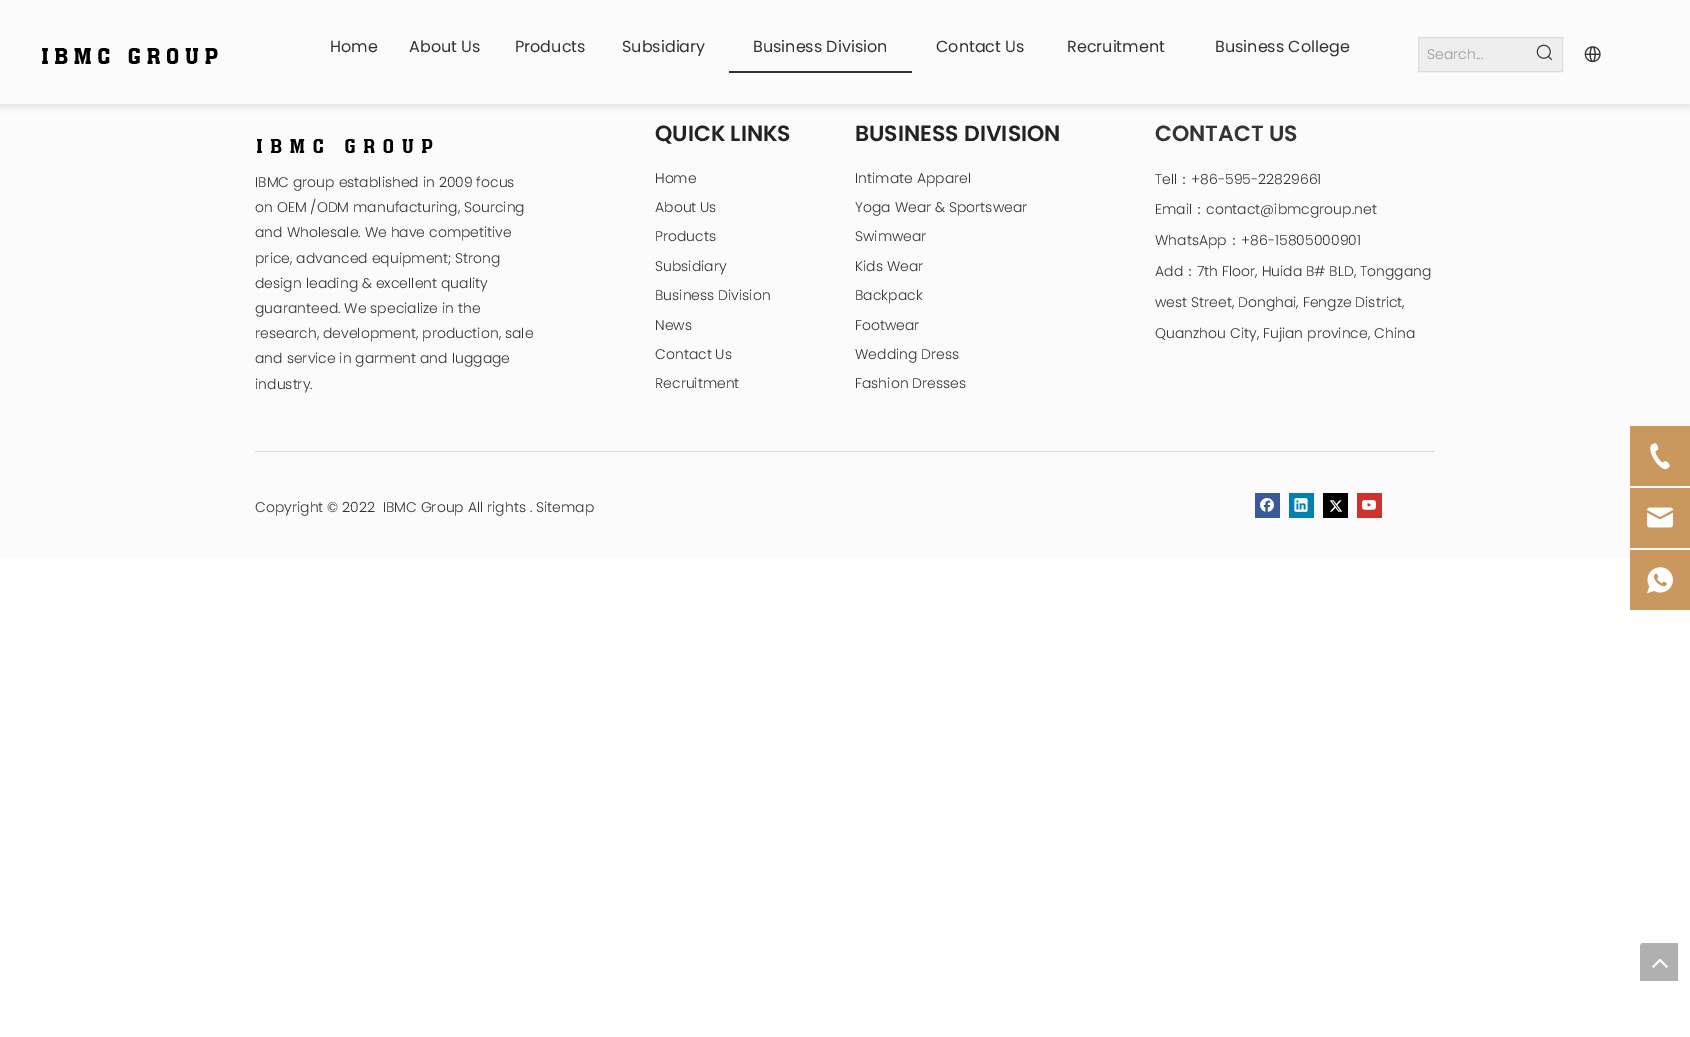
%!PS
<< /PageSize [1690 1037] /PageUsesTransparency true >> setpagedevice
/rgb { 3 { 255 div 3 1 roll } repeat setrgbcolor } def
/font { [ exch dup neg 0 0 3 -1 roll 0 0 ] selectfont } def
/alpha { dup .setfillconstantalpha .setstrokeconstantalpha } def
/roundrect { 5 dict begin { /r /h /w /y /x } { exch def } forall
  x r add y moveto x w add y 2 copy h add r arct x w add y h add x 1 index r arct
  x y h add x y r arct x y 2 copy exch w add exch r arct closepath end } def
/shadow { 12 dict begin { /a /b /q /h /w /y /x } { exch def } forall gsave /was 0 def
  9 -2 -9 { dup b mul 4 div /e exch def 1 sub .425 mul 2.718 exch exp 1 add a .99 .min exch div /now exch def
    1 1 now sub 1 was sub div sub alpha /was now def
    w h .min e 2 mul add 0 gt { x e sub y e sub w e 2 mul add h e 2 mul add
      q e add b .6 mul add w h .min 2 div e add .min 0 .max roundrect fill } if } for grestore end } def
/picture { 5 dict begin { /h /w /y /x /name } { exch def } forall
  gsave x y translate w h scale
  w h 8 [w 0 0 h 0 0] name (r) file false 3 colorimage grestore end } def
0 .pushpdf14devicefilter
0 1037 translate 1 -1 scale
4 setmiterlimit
255 255 255 rgb
0 0 1690 1037 rectfill
251 251 251 rgb
0 104 1690 454 rectfill
51 51 51 rgb
0 3 1690 104 0 3.5 0.12 shadow
251 251 251 rgb
0 1 1690 103 rectfill
(img/1.rgb) 42 48 176 16 picture
51 51 51 rgb
729 71 183 2 rectfill
238 238 238 rgb
1418.5 37.5 moveto 1562.5 37.5 lineto 1562.5 71.5 lineto 1418.5 71.5 lineto closepath gsave fill grestore
221 221 221 rgb
stroke
(img/2.rgb) 1536 44 16 16 picture
(img/3.rgb) 1584 46 17 17 picture
(img/4.rgb) 257 139 176 14 picture
255 451 1180 1 rectfill
202 152 94 rgb
1630 426 60 60 rectfill
(img/5.rgb) 1650 443 20 27 picture
1630 488 60 60 rectfill
(img/6.rgb) 1647 507 26 21 picture
1630 550 60 60 rectfill
(img/7.rgb) 1647 567 26 27 picture
59 89 152 rgb
1255 493 25 25 rectfill
(img/8.rgb) 1260 498 14 14 picture
0 127 177 rgb
1289 493 25 25 rectfill
(img/9.rgb) 1294 498 14 14 picture
0 0 0 rgb
1323 493 25 25 rectfill
(img/10.rgb) 1329 500 14 12 picture
205 51 45 rgb
1357 493 25 25 rectfill
(img/11.rgb) 1362 500 14 10 picture
(img/12.rgb) 1640 943 38 38 picture
/Poppins-Regular 16 font
51 51 51 rgb
[
  [(Home) 330 52]
  [(About Us) 409 52]
  [(Products) 515 52]
  [(Subsidiary) 622 52]
  [(Business Division) 753 52]
  [(Contact Us) 936 52]
  [(Recruitment) 1067 52]
  [(Business College) 1215 52]
] { aload pop moveto show } forall
/Poppins-Light 14 font
153 153 153 rgb
1427 59 moveto (Search...) show
51 51 51 rgb
[
  [(IBMC group established in 2009 focus) 255 187]
  [(on OEM /ODM manufacturing, Sourcing) 255 212]
  [(and Wholesale. We have competitive) 255 237]
  [(price, advanced equipment; Strong) 255 263]
  [(design leading & excellent quality) 255 288]
  [(guaranteed. We specialize in the) 255 313]
  [(research, development, production, sale) 255 338]
  [(and service in garment and luggage) 255 363]
  [(industry.) 255 389]
] { aload pop moveto show } forall
/Poppins-SemiBold 22 font
34 34 34 rgb
655 141 moveto (QUICK LINKS) show
/Poppins-Light 14 font
51 51 51 rgb
[
  [(Home) 655 183]
  [(About Us) 655 212]
  [(Products) 655 241]
  [(Subsidiary) 655 271]
  [(Business Division) 655 300]
  [(News) 655 330]
  [(Contact Us) 655 359]
  [(Recruitment) 655 388]
] { aload pop moveto show } forall
/Poppins-SemiBold 22 font
34 34 34 rgb
855 141 moveto (BUSINESS DIVISION) show
/Poppins-Light 14 font
51 51 51 rgb
[
  [(Intimate Apparel) 855 183]
  [(Yoga Wear & Sportswear) 855 212]
  [(Swimwear) 855 241]
  [(Kids Wear) 855 271]
  [(Backpack) 855 300]
  [(Footwear) 855 330]
  [(Wedding Dress) 855 359]
  [(Fashion Dresses) 855 388]
] { aload pop moveto show } forall
/Poppins-SemiBold 22 font
1155 141 moveto (CONTACT US) show
/Poppins-Light 14 font
1155 184 moveto (Tell) show
/WenQuanYiZenHei-Medium 14 font
1177 184 moveto (：) show
/Poppins-Light 14 font
1191 184 moveto (+86-595-22829661) show
1155 214 moveto (Email) show
/WenQuanYiZenHei-Medium 14 font
1192 214 moveto (：) show
/Poppins-Light 14 font
1206 214 moveto (contact@ibmcgroup.net) show
1155 245 moveto (WhatsApp) show
/WenQuanYiZenHei-Medium 14 font
1227 245 moveto (：) show
/Poppins-Light 14 font
1241 245 moveto (+86-15805000901) show
1155 276 moveto (Add) show
/WenQuanYiZenHei-Medium 14 font
1183 276 moveto (：) show
/Poppins-Light 14 font
[
  [(7th Floor, Huida B# BLD, Tonggang) 1197 276]
  [(west Street, Donghai, Fengze District,) 1155 307]
  [(Quanzhou City, Fujian province, China) 1155 338]
  [(Copyright © 2022  IBMC Group All rights . Sitemap) 255 512]
] { aload pop moveto show } forall
.poppdf14devicefilter showpage
